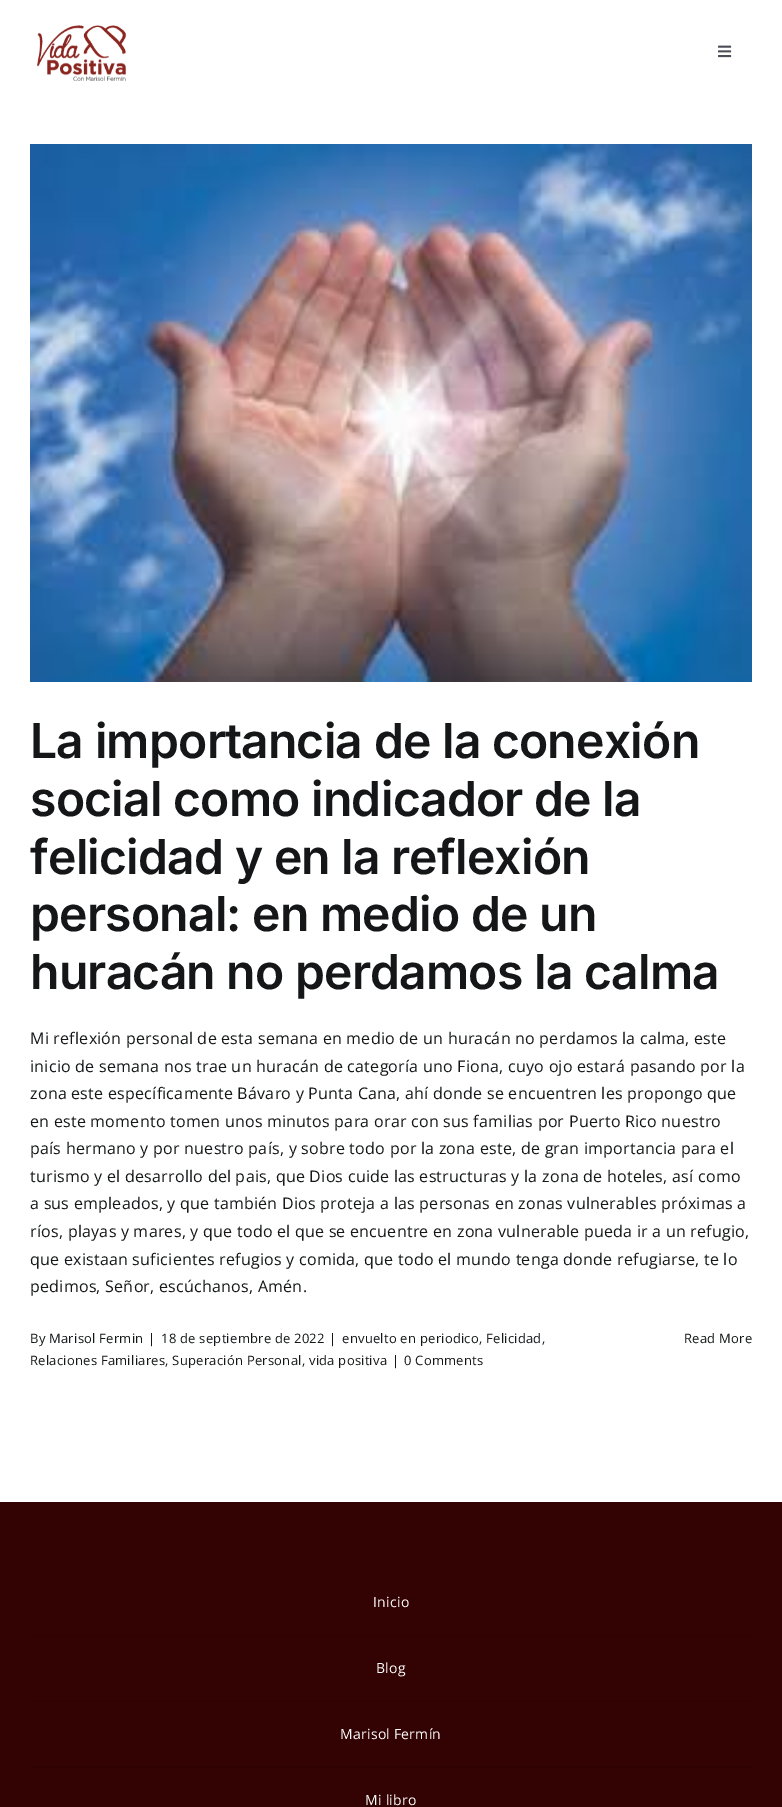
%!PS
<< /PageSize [782 1807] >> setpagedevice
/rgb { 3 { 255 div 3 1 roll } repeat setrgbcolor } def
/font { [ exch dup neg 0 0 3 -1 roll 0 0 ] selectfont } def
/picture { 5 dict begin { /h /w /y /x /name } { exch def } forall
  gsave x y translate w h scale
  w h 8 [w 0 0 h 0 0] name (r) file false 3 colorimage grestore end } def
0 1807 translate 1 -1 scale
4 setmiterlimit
255 255 255 rgb
0 0 782 1807 rectfill
(img/1.rgb) 37 25 89 56 picture
(img/2.rgb) 718 45 14 13 picture
(img/3.rgb) 30 144 722 538 picture
[
  [0 1502 782 305 51 2 2]
  [30 1635 722 1 46 2 2]
  [30 1701 722 1 46 2 2]
  [30 1767 722 1 46 2 2]
] { aload pop rgb rectfill } forall
/Inter-SemiBold 48 font
20 22 23 rgb
30 758 moveto -0.75 0 (La importancia de la conexión) ashow
30 816 moveto -0.75 0 (social como indicador de la) ashow
30 874 moveto -0.75 0 (felicidad y en la reflexión) ashow
30 931 moveto -0.75 0 (personal: en medio de un) ashow
30 989 moveto -0.75 0 (huracán no perdamos la calma) ashow
/OpenSans-Regular 16 font
30 1044 moveto 0.25 0 (Mi reflexión personal de esta semana en medio de un huracán no perdamos la calma, este) ashow
30 1072 moveto 0.25 0 (inicio de semana nos trae un huracán de categoría uno Fiona, cuyo ojo estará pasando por la) ashow
30 1099 moveto 0.25 0 (zona este específicamente Bávaro y Punta Cana, ahí donde se encuentren les propongo que) ashow
30 1127 moveto 0.25 0 (en este momento tomen unos minutos para orar con sus familias por Puerto Rico nuestro) ashow
30 1154 moveto 0.25 0 (país hermano y por nuestro país, y sobre todo por la zona este, de gran importancia para el) ashow
30 1182 moveto 0.25 0 (turismo y el desarrollo del pais, que Dios cuide las estructuras y la zona de hoteles, así como) ashow
30 1209 moveto 0.25 0 (a sus empleados, y que también Dios proteja a las personas en zonas vulnerables próximas a) ashow
30 1237 moveto 0.25 0 (ríos, playas y mares, y que todo el que se encuentre en zona vulnerable pueda ir a un refugio,) ashow
30 1265 moveto 0.25 0 (que existaan suficientes refugios y comida, que todo el mundo tenga donde refugiarse, te lo) ashow
30 1292 moveto 0.25 0 (pedimos, Señor, escúchanos, Amén.) ashow
/OpenSans-Regular 13 font
30 1343 moveto 0.25 0 (By Marisol Fermin) ashow
148 1343 moveto 0.25 0 (|) ashow
161 1343 moveto 0.25 0 (18 de septiembre de 2022) ashow
329 1343 moveto 0.25 0 (|) ashow
342 1343 moveto 0.25 0 (envuelto en periodico, Felicidad,) ashow
30 1365 moveto 0.25 0 (Relaciones Familiares, Superación Personal, vida positiva) ashow
392 1365 moveto 0.25 0 (|) ashow
404 1365 moveto 0.25 0 (0 Comments) ashow
684 1343 moveto 0.25 0 (Read More) ashow
/OpenSans-Regular 14 font
255 255 255 rgb
373 1607 moveto 0.25 0 (Inicio) ashow
376 1673 moveto 0.25 0 (Blog) ashow
340 1739 moveto 0.25 0 (Marisol Fermín) ashow
365 1805 moveto 0.25 0 (Mi libro) ashow
showpage
